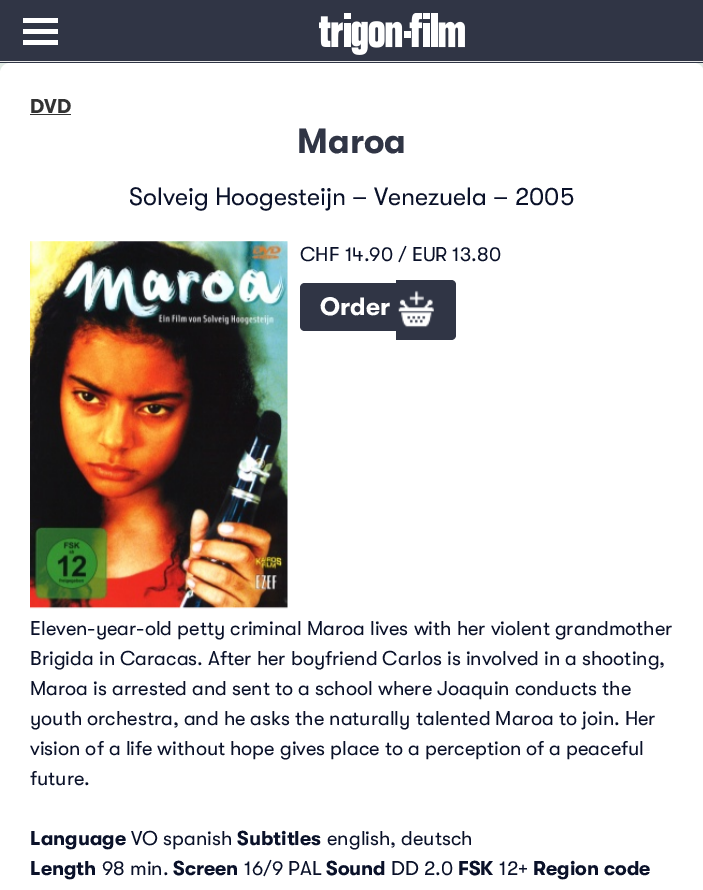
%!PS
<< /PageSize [703 890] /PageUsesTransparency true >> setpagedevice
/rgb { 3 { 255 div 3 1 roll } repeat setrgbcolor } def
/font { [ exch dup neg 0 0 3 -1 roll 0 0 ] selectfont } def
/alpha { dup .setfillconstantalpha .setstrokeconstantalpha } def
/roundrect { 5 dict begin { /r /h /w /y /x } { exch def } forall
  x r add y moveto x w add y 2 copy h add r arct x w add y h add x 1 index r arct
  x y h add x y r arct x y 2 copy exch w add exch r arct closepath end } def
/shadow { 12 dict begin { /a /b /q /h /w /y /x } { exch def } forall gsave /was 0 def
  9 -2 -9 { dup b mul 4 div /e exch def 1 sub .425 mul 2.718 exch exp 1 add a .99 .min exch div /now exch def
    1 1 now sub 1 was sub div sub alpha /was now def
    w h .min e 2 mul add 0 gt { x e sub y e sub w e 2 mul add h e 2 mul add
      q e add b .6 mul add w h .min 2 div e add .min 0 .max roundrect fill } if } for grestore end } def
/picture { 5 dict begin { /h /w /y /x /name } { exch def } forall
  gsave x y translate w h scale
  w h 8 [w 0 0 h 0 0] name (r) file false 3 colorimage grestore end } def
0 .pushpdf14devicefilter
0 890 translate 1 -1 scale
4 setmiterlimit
235 244 238 rgb
0 0 703 890 rectfill
0 0 0 rgb
0 63 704 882 10 15 0.1 shadow
48 53 69 rgb
0 0 703 63 rectfill
232 232 232 rgb
0 61 703 1 rectfill
(img/1.rgb) 319 13 146 42 picture
[
  [23 40 35 5 255 255 255]
  [23 18 35 5 255 255 255]
  [23 29 35 5 255 255 255]
] { aload pop rgb rectfill } forall
0 63 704 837 10 roundrect fill
51 51 51 rgb
30 114 41 1 rectfill
(img/2.rgb) 30 241 258 368 picture
48 53 69 rgb
305 283 moveto 396 283 lineto 396 331 lineto 305 331 lineto 302 331 300 329 300 326 curveto 300 288 lineto 300 285 302 283 305 283 curveto closepath fill
396 280 moveto 451 280 lineto 454 280 456 282 456 285 curveto 456 335 lineto 456 338 454 340 451 340 curveto 396 340 lineto closepath fill
(img/3.rgb) 398 290 36 38 picture
/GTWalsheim-Bold 20 font
51 51 51 rgb
30 113 moveto (DVD) show
/GTWalsheim-Bold 35 font
48 53 69 rgb
297 153 moveto (Maroa) show
/GTWalsheim-Regular 25 font
10 17 41 rgb
129 205 moveto (Solveig Hoogesteijn – Venezuela – 2005) show
/GTWalsheim-Regular 20 font
300 261 moveto (CHF 14.90 / EUR 13.80) show
/GTWalsheim-Bold 25 font
255 255 255 rgb
320 315 moveto (Order) show
/GTWalsheim-Regular 20 font
10 17 41 rgb
[
  [(Eleven-year-old petty criminal Maroa lives with her violent grandmother) 30 635]
  [(Brigida in Caracas. After her boyfriend Carlos is involved in a shooting,) 30 665]
  [(Maroa is arrested and sent to a school where Joaquin conducts the) 30 695]
  [(youth orchestra, and he asks the naturally talented Maroa to join. Her) 30 725]
  [(vision of a life without hope gives place to a perception of a peaceful) 30 755]
  [(future.) 30 785]
] { aload pop moveto show } forall
/GTWalsheim-Bold 20 font
30 845 moveto (Language) show
/GTWalsheim-Regular 20 font
131 845 moveto (VO spanish) show
/GTWalsheim-Bold 20 font
237 845 moveto (Subtitles) show
/GTWalsheim-Regular 20 font
327 845 moveto (english, deutsch) show
/GTWalsheim-Bold 20 font
30 875 moveto (Length) show
/GTWalsheim-Regular 20 font
102 875 moveto (98 min.) show
/GTWalsheim-Bold 20 font
173 875 moveto (Screen) show
/GTWalsheim-Regular 20 font
244 875 moveto (16/9 PAL) show
/GTWalsheim-Bold 20 font
326 875 moveto (Sound) show
/GTWalsheim-Regular 20 font
391 875 moveto (DD 2.0) show
/GTWalsheim-Bold 20 font
458 875 moveto (FSK) show
/GTWalsheim-Regular 20 font
499 875 moveto (12+) show
/GTWalsheim-Bold 20 font
533 875 moveto (Region code) show
.poppdf14devicefilter showpage
